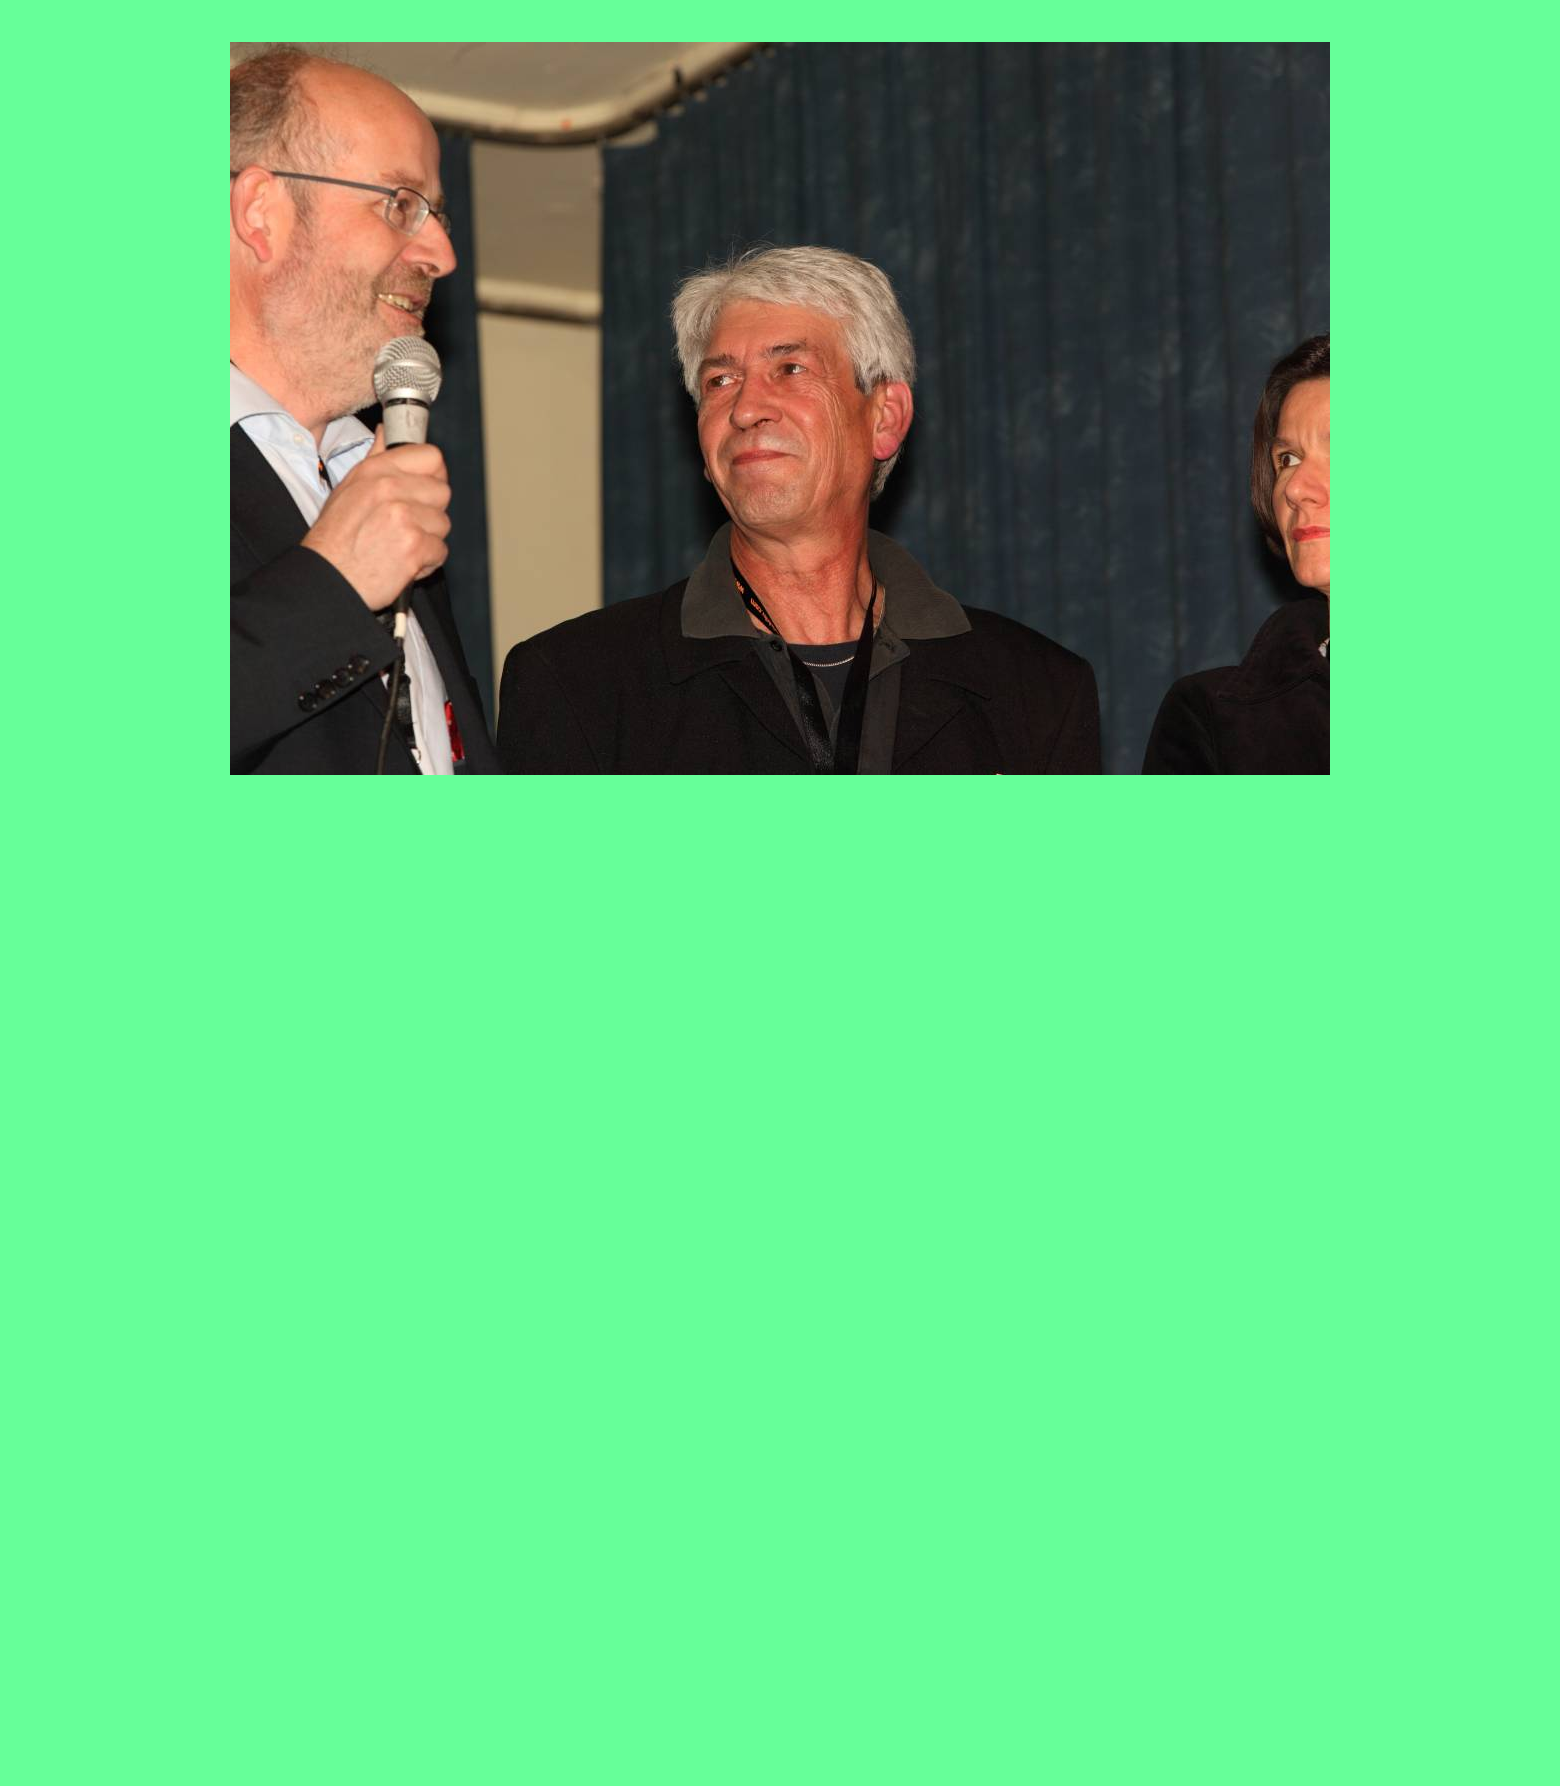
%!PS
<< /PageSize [1560 1786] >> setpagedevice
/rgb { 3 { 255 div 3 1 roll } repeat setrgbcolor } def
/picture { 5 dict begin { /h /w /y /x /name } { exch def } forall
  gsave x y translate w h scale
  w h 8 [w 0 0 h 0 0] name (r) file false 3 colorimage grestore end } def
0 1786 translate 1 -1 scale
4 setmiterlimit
102 255 153 rgb
0 0 1560 1786 rectfill
(img/1.rgb) 230 42 1100 733 picture
showpage
